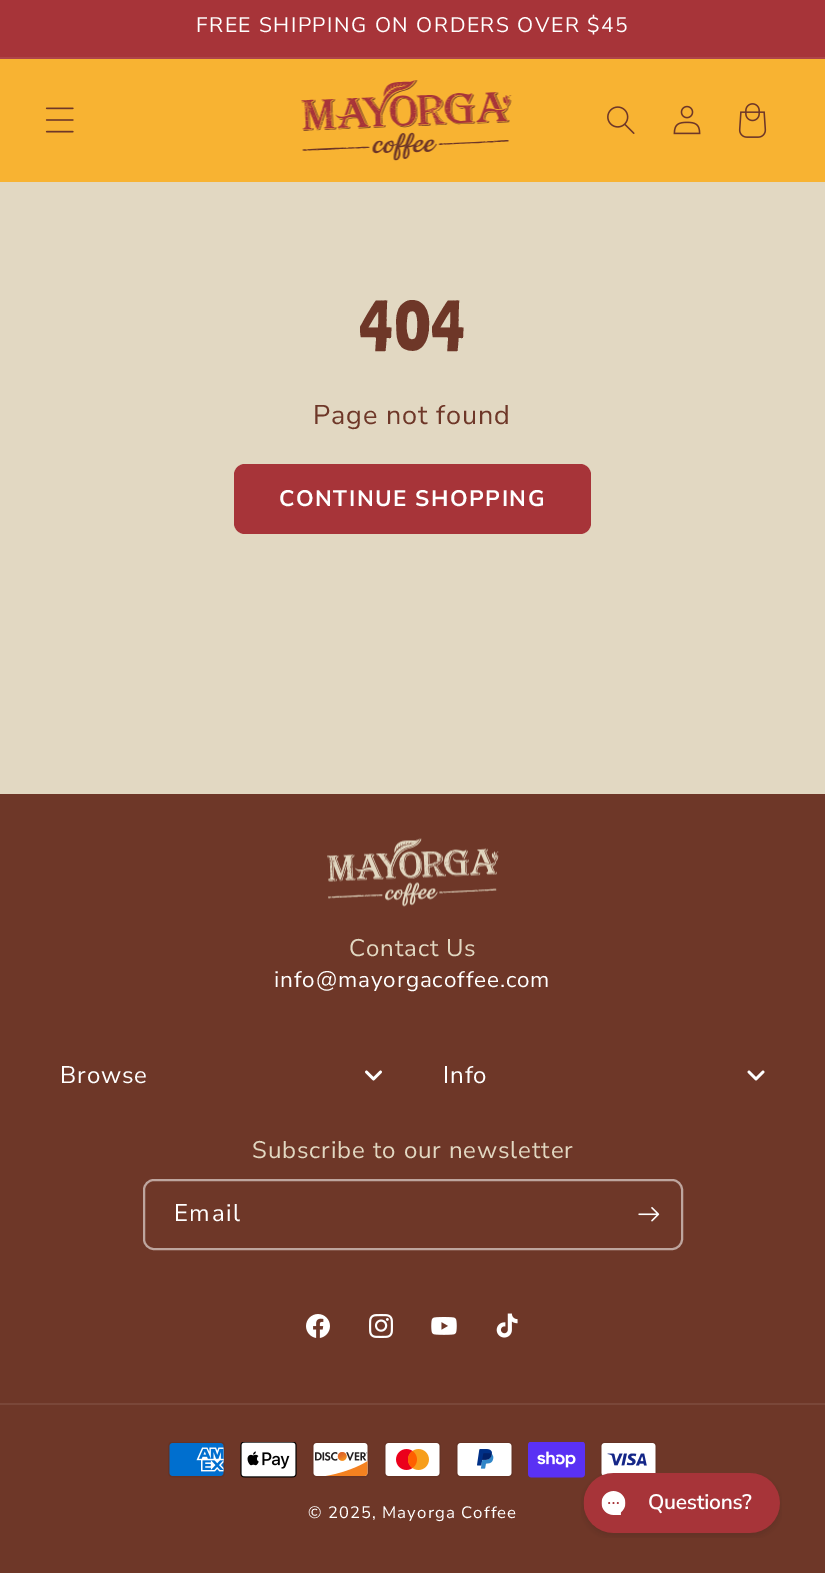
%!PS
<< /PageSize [825 1573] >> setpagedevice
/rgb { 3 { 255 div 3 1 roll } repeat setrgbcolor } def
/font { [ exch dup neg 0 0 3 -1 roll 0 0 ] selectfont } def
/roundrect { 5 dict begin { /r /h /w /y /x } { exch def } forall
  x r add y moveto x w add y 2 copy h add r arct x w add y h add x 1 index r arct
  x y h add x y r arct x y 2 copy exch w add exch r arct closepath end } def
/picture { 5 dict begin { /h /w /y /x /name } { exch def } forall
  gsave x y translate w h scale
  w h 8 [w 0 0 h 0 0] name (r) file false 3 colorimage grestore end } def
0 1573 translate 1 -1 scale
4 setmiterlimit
226 216 194 rgb
0 0 825 1573 rectfill
[
  [0 0 825 57 167 52 57]
  [0 57 825 2 174 68 73]
  [0 59 825 123 248 179 50]
] { aload pop rgb rectfill } forall
(img/1.rgb) 45 107 29 26 picture
(img/2.rgb) 301 80 211 81 picture
(img/3.rgb) 607 106 28 28 picture
(img/4.rgb) 673 105 28 30 picture
(img/5.rgb) 738 103 29 35 picture
167 52 57 rgb
234 464 357 70 11 roundrect fill
110 55 40 rgb
0 794 825 779 rectfill
(img/6.rgb) 327 838 172 69 picture
255 255 255 rgb
2.7 setlinewidth
1 setlinecap
1 setlinejoin
366.5 1072 moveto 373.5 1079 lineto 380.5 1072 lineto stroke
749 1072 moveto 756 1079 lineto 763 1072 lineto stroke
190 165 158 rgb
2 setlinewidth
0 setlinecap
0 setlinejoin
144 1180 538 69 10 roundrect stroke
(img/7.rgb) 638 1207 22 15 picture
(img/8.rgb) 306 1314 24 24 picture
(img/9.rgb) 369 1314 24 24 picture
(img/10.rgb) 431 1317 26 18 picture
(img/11.rgb) 496 1313 22 25 picture
122 71 57 rgb
0 1403 825 2 rectfill
(img/12.rgb) 168 1442 57 36 picture
(img/13.rgb) 240 1442 57 36 picture
(img/14.rgb) 312 1442 57 36 picture
(img/15.rgb) 384 1442 57 36 picture
(img/16.rgb) 456 1442 57 36 picture
(img/17.rgb) 528 1442 57 36 picture
(img/18.rgb) 600 1442 57 34 picture
(img/19.rgb) 581 1473 201 65 picture
/NunitoSans-Regular 21 font
255 255 255 rgb
196 32 moveto 1.5 0 (FREE SHIPPING ON ORDERS OVER $45) ashow
/LondrinaSolid-Regular 72 font
110 55 40 rgb
359 351 moveto 0.9 0 (404) ashow
/NunitoSans-Regular 27 font
313 424 moveto 0.9 0 (Page not found) ashow
/NunitoSans-Bold 22.5 font
255 255 255 rgb
279 506 moveto 1.5 0 (CONTINUE SHOPPING) ashow
/NunitoSans-Regular 24 font
226 216 194 rgb
349 956 moveto 0.9 0 (Contact Us) ashow
/NunitoSans-Regular 22.5 font
255 255 255 rgb
274 987 moveto 0.9 0 (info@mayorgacoffee.com) ashow
/NunitoSans-Regular 24 font
60 1083 moveto 0.9 0 (Browse) ashow
443 1083 moveto 0.9 0 (Info) ashow
226 216 194 rgb
252 1158 moveto 0.9 0 (Subscribe to our newsletter) ashow
255 255 255 rgb
174 1221 moveto 1.5 0 (Email) ashow
/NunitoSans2-Regular 16.5 font
308 1518 moveto 1.05 0 (© 2025, Mayorga Coffee) ashow
showpage
